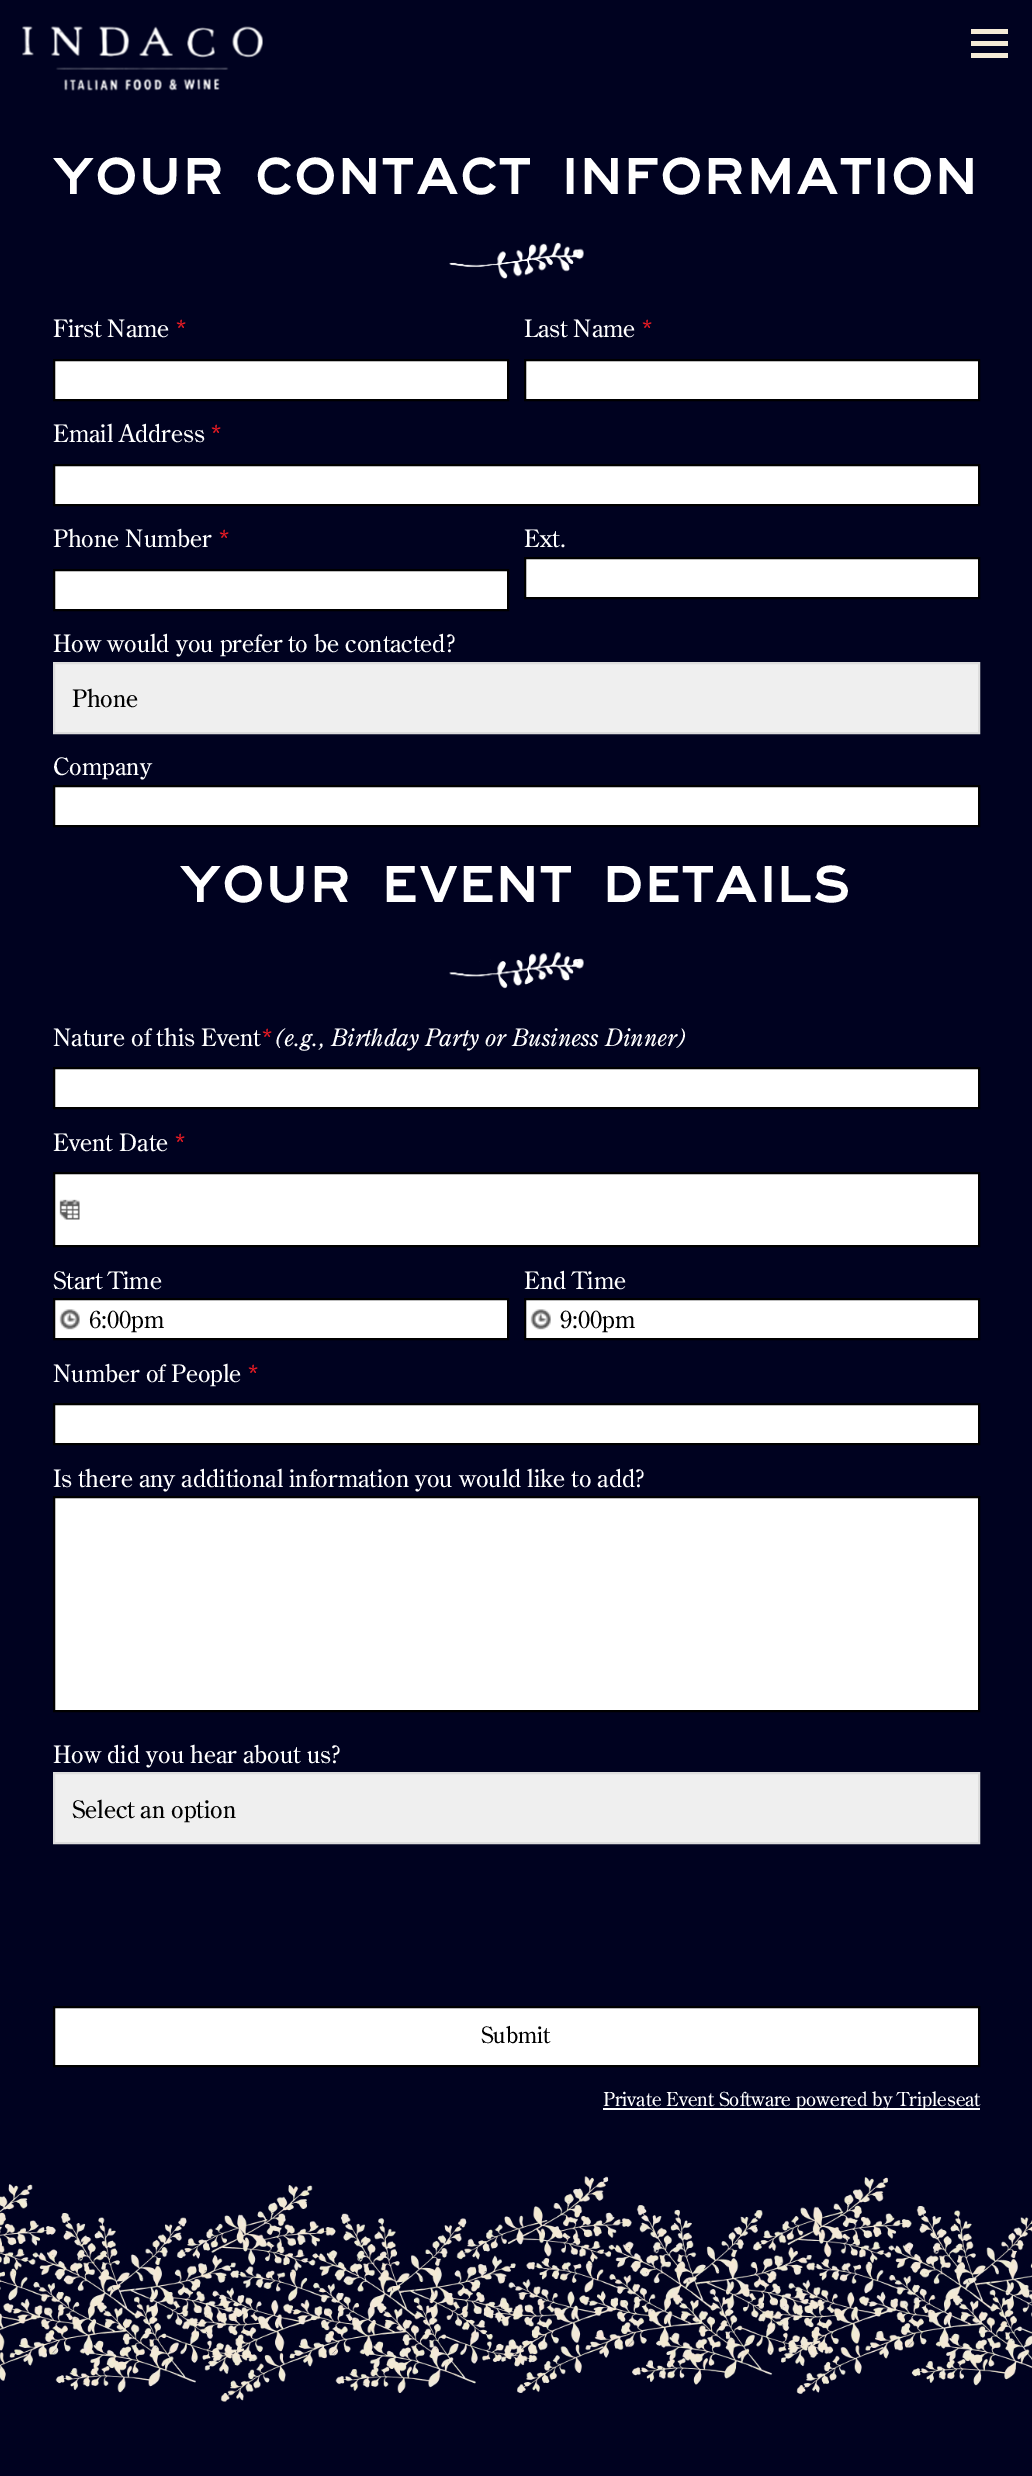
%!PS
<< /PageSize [1032 2476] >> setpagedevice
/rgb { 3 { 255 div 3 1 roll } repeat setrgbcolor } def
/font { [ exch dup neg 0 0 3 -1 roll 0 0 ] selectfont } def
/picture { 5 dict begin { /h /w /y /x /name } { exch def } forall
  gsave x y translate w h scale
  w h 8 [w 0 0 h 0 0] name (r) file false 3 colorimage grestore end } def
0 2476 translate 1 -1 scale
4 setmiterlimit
0 2 32 rgb
0 0 1032 2476 rectfill
(img/1.rgb) 22 26 241 65 picture
[
  [971 29 37 5 245 235 215]
  [971 41 37 5 245 235 215]
  [971 53 37 5 245 235 215]
] { aload pop rgb rectfill } forall
(img/2.rgb) 449 242 135 37 picture
255 255 255 rgb
54 360 moveto 508 360 lineto 508 400 lineto 54 400 lineto closepath gsave fill grestore
0 0 0 rgb
2 setlinewidth
stroke
255 255 255 rgb
525 360 moveto 979 360 lineto 979 400 lineto 525 400 lineto closepath gsave fill grestore
0 0 0 rgb
stroke
255 255 255 rgb
54 465 moveto 979 465 lineto 979 505 lineto 54 505 lineto closepath gsave fill grestore
0 0 0 rgb
stroke
255 255 255 rgb
54 570 moveto 508 570 lineto 508 610 lineto 54 610 lineto closepath gsave fill grestore
0 0 0 rgb
stroke
255 255 255 rgb
525 558 moveto 979 558 lineto 979 598 lineto 525 598 lineto closepath gsave fill grestore
0 0 0 rgb
stroke
239 239 239 rgb
54 663 moveto 979 663 lineto 979 733 lineto 54 733 lineto closepath gsave fill grestore
221 221 221 rgb
stroke
255 255 255 rgb
54 786 moveto 979 786 lineto 979 826 lineto 54 826 lineto closepath gsave fill grestore
0 0 0 rgb
stroke
(img/3.rgb) 449 952 135 37 picture
255 255 255 rgb
54 1068 moveto 979 1068 lineto 979 1108 lineto 54 1108 lineto closepath gsave fill grestore
0 0 0 rgb
stroke
255 255 255 rgb
55 1174 923 71 rectfill
(img/4.rgb) 59 1199 21 21 picture
0 0 0 rgb
54 1173 925 73 rectstroke
255 255 255 rgb
55 1300 452 38 rectfill
(img/5.rgb) 59 1309 21 21 picture
0 0 0 rgb
54 1299 454 40 rectstroke
255 255 255 rgb
526 1300 452 38 rectfill
(img/6.rgb) 530 1309 21 21 picture
0 0 0 rgb
525 1299 454 40 rectstroke
255 255 255 rgb
54 1404 moveto 979 1404 lineto 979 1444 lineto 54 1444 lineto closepath gsave fill grestore
0 0 0 rgb
stroke
255 255 255 rgb
54 1497 moveto 979 1497 lineto 979 1711 lineto 54 1711 lineto closepath gsave fill grestore
0 0 0 rgb
stroke
239 239 239 rgb
54 1773 moveto 979 1773 lineto 979 1843 lineto 54 1843 lineto closepath gsave fill grestore
221 221 221 rgb
stroke
255 255 255 rgb
54 2007 moveto 979 2007 lineto 979 2066 lineto 54 2066 lineto closepath gsave fill grestore
0 0 0 rgb
stroke
255 255 255 rgb
603 2108 377 2 rectfill
(img/7.rgb) 0 2176 1032 226 picture
/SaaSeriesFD-Regular 54 font
53 194 moveto 1.5 0 (YOUR CONTACT INFORMATION) ashow
/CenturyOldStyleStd-Regular 24 font
53 337 moveto (First Name) show
237 28 36 rgb
175 337 moveto (*) show
255 255 255 rgb
524 337 moveto (Last Name) show
237 28 36 rgb
641 337 moveto (*) show
255 255 255 rgb
53 442 moveto (Email Address) show
237 28 36 rgb
210 442 moveto (*) show
255 255 255 rgb
53 547 moveto (Phone Number) show
237 28 36 rgb
218 547 moveto (*) show
255 255 255 rgb
524 547 moveto (Ext.) show
53 652 moveto (How would you prefer to be contacted?) show
0 0 0 rgb
72 707 moveto (Phone) show
255 255 255 rgb
53 775 moveto (Company) show
/SaaSeriesFD-Regular 54 font
180 902 moveto 1.5 0 (YOUR EVENT DETAILS) ashow
/CenturyOldStyleStd-Regular 24 font
53 1046 moveto (Nature of this Event) show
237 28 36 rgb
261 1046 moveto (*) show
/CenturyOldStyleStd-Italic 24 font
255 255 255 rgb
273 1046 moveto (\(e.g., Birthday Party or Business Dinner\)) show
/CenturyOldStyleStd-Regular 24 font
53 1151 moveto (Event Date) show
237 28 36 rgb
174 1151 moveto (*) show
255 255 255 rgb
53 1289 moveto (Start Time) show
0 0 0 rgb
89 1328 moveto (6:00pm) show
255 255 255 rgb
524 1289 moveto (End Time) show
0 0 0 rgb
560 1328 moveto (9:00pm) show
255 255 255 rgb
53 1382 moveto (Number of People) show
237 28 36 rgb
247 1382 moveto (*) show
255 255 255 rgb
53 1487 moveto (Is there any additional information you would like to add?) show
53 1763 moveto (How did you hear about us?) show
0 0 0 rgb
72 1818 moveto (Select an option) show
/CenturyOldStyleStd-Regular 22.5 font
481 2043 moveto (Submit) show
/CenturyOldStyleStd-Regular 19.25 font
255 255 255 rgb
603 2106 moveto (Private Event Software powered by Tripleseat) show
showpage
